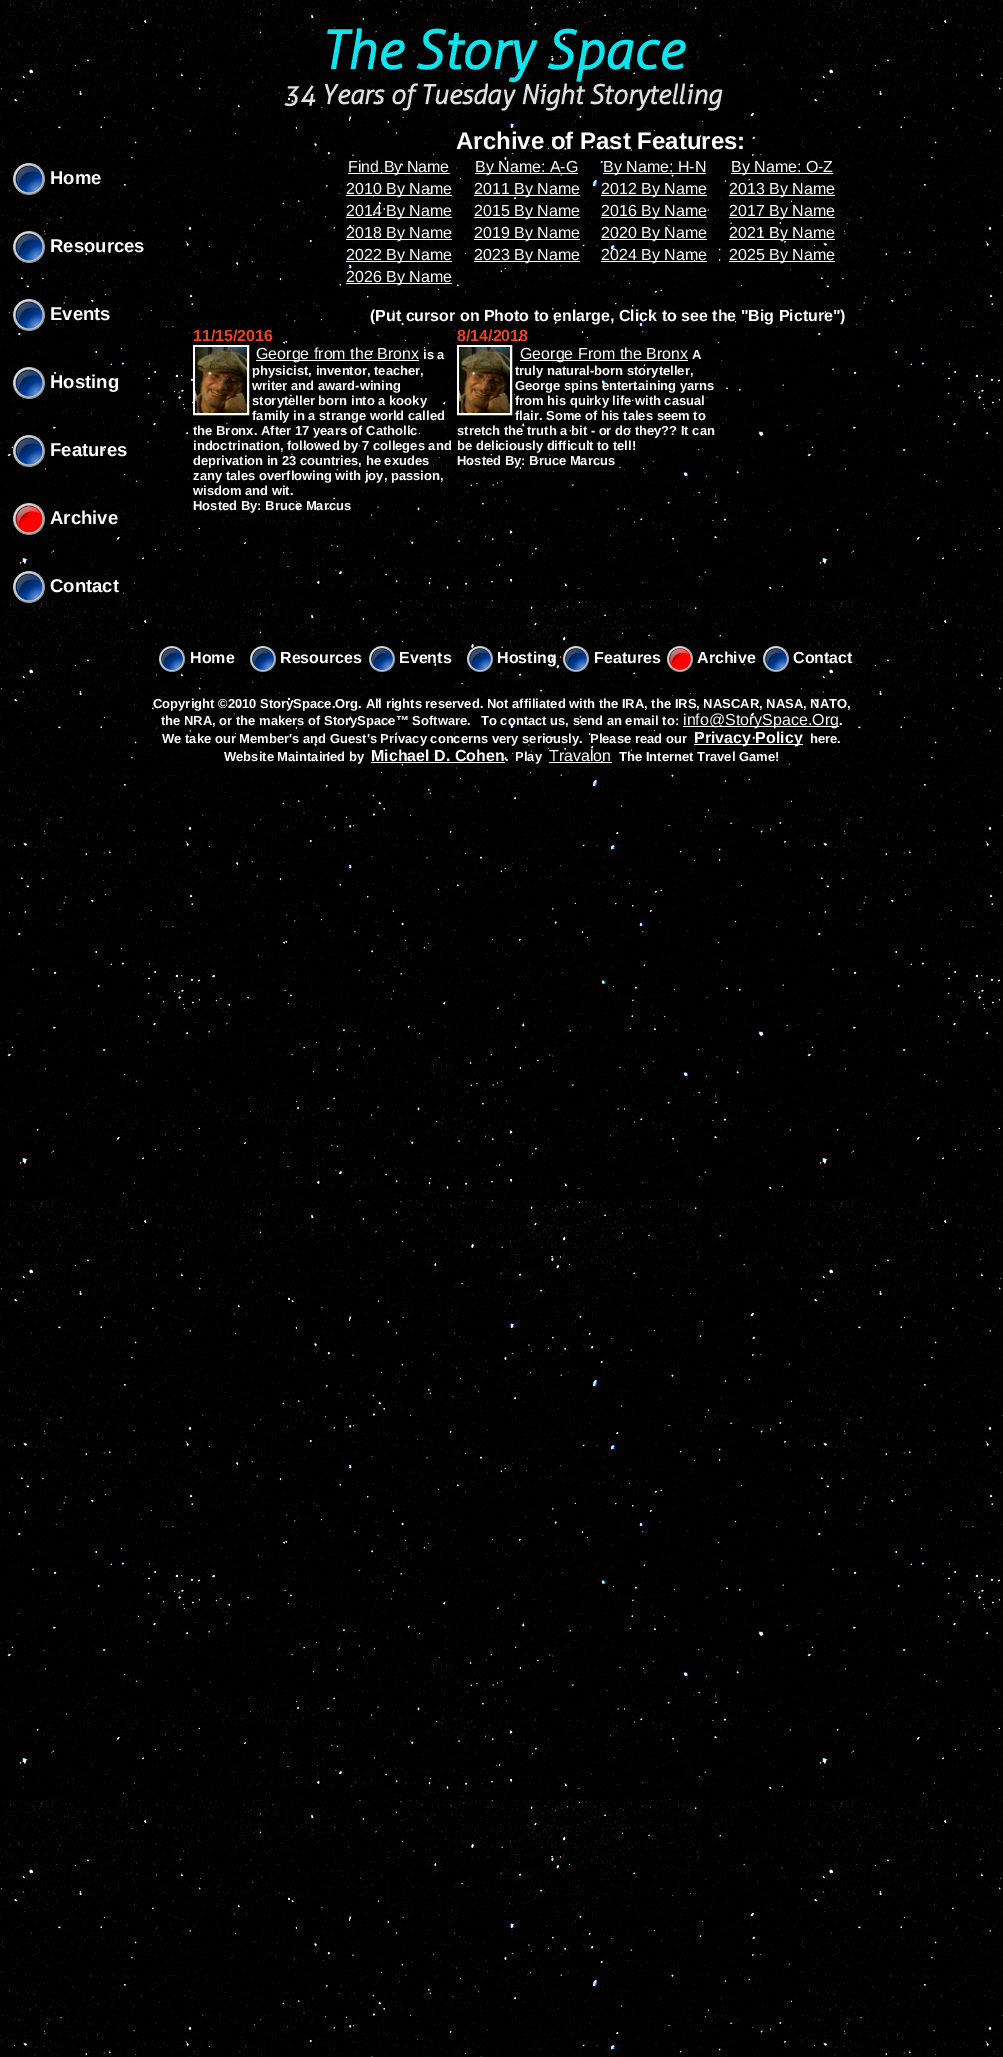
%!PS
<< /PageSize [1003 2057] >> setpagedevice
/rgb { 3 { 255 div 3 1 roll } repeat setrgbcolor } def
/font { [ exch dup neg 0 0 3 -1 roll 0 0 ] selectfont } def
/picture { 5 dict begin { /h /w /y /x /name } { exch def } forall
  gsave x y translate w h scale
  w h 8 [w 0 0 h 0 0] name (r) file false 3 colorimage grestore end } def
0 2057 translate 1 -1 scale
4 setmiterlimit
255 255 255 rgb
0 0 1003 2057 rectfill
(img/1.rgb) 0 0 1003 2057 picture
(img/2.rgb) 13 163 32 32 picture
(img/3.rgb) 13 231 32 32 picture
(img/4.rgb) 13 299 32 32 picture
(img/5.rgb) 13 367 32 32 picture
(img/6.rgb) 13 435 32 32 picture
(img/7.rgb) 13 503 32 32 picture
(img/8.rgb) 13 571 32 32 picture
[
  [348 173 102 1 255 255 255]
  [475 173 103 1 255 255 255]
  [603 173 103 1 255 255 255]
  [731 173 102 1 255 255 255]
  [346 195 106 1 255 255 255]
  [474 195 106 1 255 255 255]
  [601 195 106 1 255 255 255]
  [729 195 106 1 255 255 255]
  [346 217 106 1 255 255 255]
  [474 217 106 1 255 255 255]
  [601 217 106 1 255 255 255]
  [729 217 106 1 255 255 255]
  [346 239 106 1 255 255 255]
  [474 239 106 1 255 255 255]
  [601 239 106 1 255 255 255]
  [729 239 106 1 255 255 255]
  [346 261 106 1 255 255 255]
  [474 261 106 1 255 255 255]
  [601 261 106 1 255 255 255]
  [729 261 106 1 255 255 255]
  [346 283 106 1 255 255 255]
] { aload pop rgb rectfill } forall
2 setlinewidth
194 346 54 68 rectstroke
(img/9.rgb) 195 347 52 66 picture
256 360 163 1 rectfill
458 346 53 68 rectstroke
(img/10.rgb) 459 347 51 66 picture
520 360 168 1 rectfill
(img/11.rgb) 159 646 26 26 picture
(img/12.rgb) 250 646 26 26 picture
(img/13.rgb) 369 646 26 26 picture
(img/14.rgb) 467 646 26 26 picture
(img/15.rgb) 563 646 26 26 picture
(img/16.rgb) 667 646 26 26 picture
(img/17.rgb) 763 646 26 26 picture
[
  [683 726 156 1 255 255 255]
  [694 744 109 1 255 255 255]
  [371 762 134 1 255 255 255]
  [549 762 63 1 255 255 255]
] { aload pop rgb rectfill } forall
/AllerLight-BoldItalic 53.25 font
14 227 238 rgb
320 69 moveto (The Story Space) show
/AllerLight-BoldItalic 26.7 font
224 224 224 rgb
283 104 moveto (34 Years of Tuesday Night Storytelling) show
/LiberationSans-Bold 18.5 font
255 255 255 rgb
[
  [(Home) 50 184]
  [(Resources) 50 252]
  [(Events) 50 320]
  [(Hosting) 50 388]
  [(Features) 50 456]
  [(Archive) 50 524]
  [(Contact) 50 592]
] { aload pop moveto show } forall
/LiberationSans-Bold 24 font
456 149 moveto (Archive of Past Features:) show
/LiberationSans-Regular 16 font
[
  [(Find By Name) 348 172]
  [(By Name: A-G) 475 172]
  [(By Name: H-N) 603 172]
  [(By Name: O-Z) 731 172]
  [(2010 By Name) 346 194]
  [(2011 By Name) 474 194]
  [(2012 By Name) 601 194]
  [(2013 By Name) 729 194]
  [(2014 By Name) 346 216]
  [(2015 By Name) 474 216]
  [(2016 By Name) 601 216]
  [(2017 By Name) 729 216]
  [(2018 By Name) 346 238]
  [(2019 By Name) 474 238]
  [(2020 By Name) 601 238]
  [(2021 By Name) 729 238]
  [(2022 By Name) 346 260]
  [(2023 By Name) 474 260]
  [(2024 By Name) 601 260]
  [(2025 By Name) 729 260]
  [(2026 By Name) 346 282]
] { aload pop moveto show } forall
/LiberationSans-Bold 16 font
370 321 moveto (\(Put cursor on Photo to enlarge, Click to see the "Big Picture"\)) show
238 64 35 rgb
193 341 moveto (11/15/2016) show
/LiberationSans-Regular 16 font
255 255 255 rgb
256 359 moveto (George from the Bronx) show
/LiberationSans-Bold 13 font
[
  [(is a) 423 359]
  [(physicist, inventor, teacher,) 252 375]
  [(writer and award-wining) 252 390]
  [(storyteller born into a kooky) 252 405]
  [(family in a strange world called) 252 420]
  [(the Bronx. After 17 years of Catholic) 193 435]
  [(indoctrination, followed by 7 colleges and) 193 450]
  [(deprivation in 23 countries, he exudes) 193 465]
  [(zany tales overflowing with joy, passion,) 193 480]
  [(wisdom and wit.) 193 495]
  [(Hosted By: Bruce Marcus) 193 510]
] { aload pop moveto show } forall
/LiberationSans-Bold 16 font
238 64 35 rgb
457 341 moveto (8/14/2018) show
/LiberationSans-Regular 16 font
255 255 255 rgb
520 359 moveto (George From the Bronx) show
/LiberationSans-Bold 13 font
[
  [(A) 692 359]
  [(truly natural-born storyteller,) 515 375]
  [(George spins entertaining yarns) 515 390]
  [(from his quirky life with casual) 515 405]
  [(flair. Some of his tales seem to) 515 420]
  [(stretch the truth a bit - or do they?? It can) 457 435]
  [(be deliciously difficult to tell!) 457 450]
  [(Hosted By: Bruce Marcus) 457 465]
] { aload pop moveto show } forall
/LiberationSans-Bold 16 font
[
  [(Home) 190 663]
  [(Resources) 280 663]
  [(Events) 399 663]
  [(Hosting) 497 663]
  [(Features) 594 663]
  [(Archive) 697 663]
  [(Contact) 793 663]
] { aload pop moveto show } forall
/LiberationSans-Bold 13 font
[
  [(Copyright ©2010 StorySpace.Org. All rights reserved. Not affiliated with the IRA, the IRS, NASCAR, NASA, NATO,) 153 708]
  [(the NRA, or the makers of StorySpace™ Software.) 161 725]
  [(To contact us, send an email to:) 481 725]
] { aload pop moveto show } forall
/LiberationSans-Regular 16 font
683 725 moveto (info@StorySpace.Org) show
/LiberationSans-Bold 13 font
839 725 moveto (.) show
162 743 moveto (We take our Member's and Guest's Privacy concerns very seriously.  Please read our) show
/LiberationSans-Bold 16 font
694 743 moveto (Privacy Policy) show
/LiberationSans-Bold 13 font
810 743 moveto (here.) show
224 761 moveto (Website Maintained by) show
/LiberationSans-Bold 16 font
371 761 moveto (Michael D. Cohen) show
/LiberationSans-Bold 13 font
505 761 moveto (.) show
515 761 moveto (Play) show
/LiberationSans-Regular 16 font
549 761 moveto (Travalon) show
/LiberationSans-Bold 13 font
619 761 moveto (The Internet Travel Game!) show
showpage
